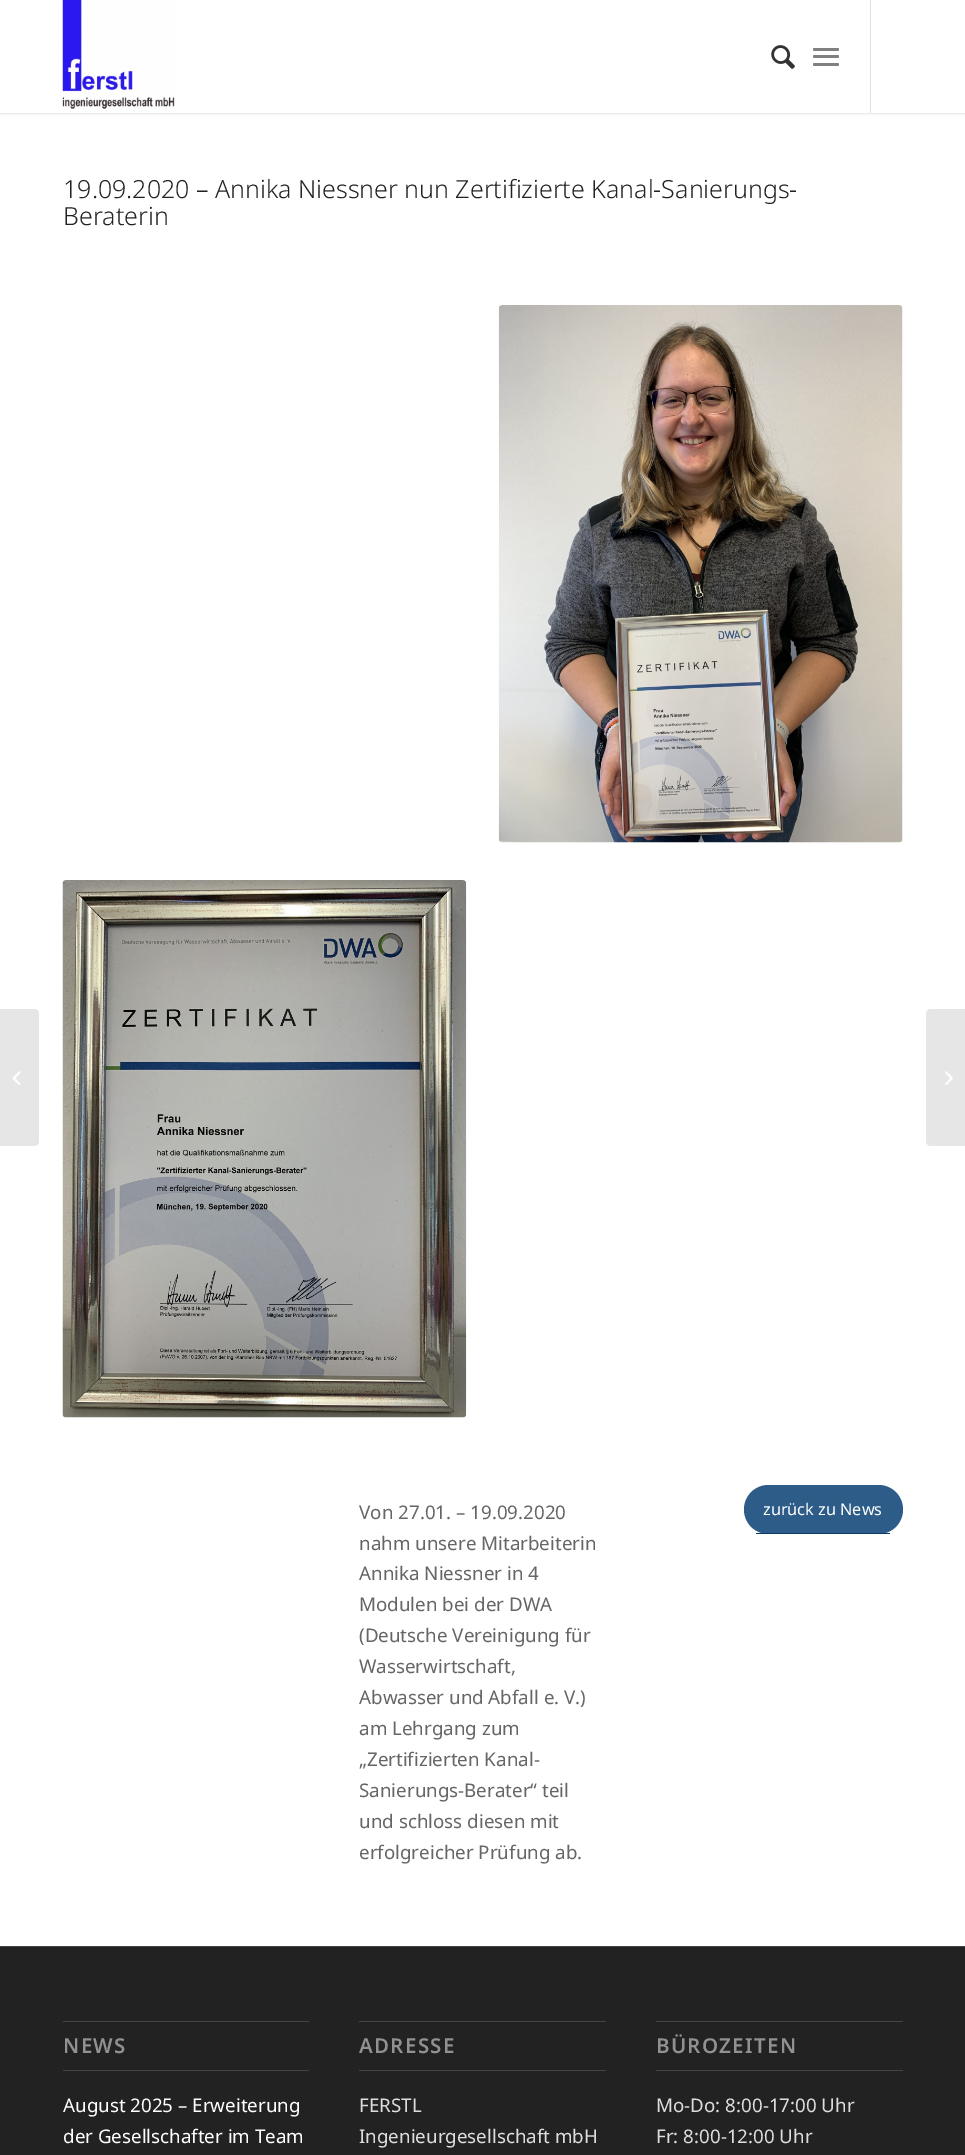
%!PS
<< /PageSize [965 2155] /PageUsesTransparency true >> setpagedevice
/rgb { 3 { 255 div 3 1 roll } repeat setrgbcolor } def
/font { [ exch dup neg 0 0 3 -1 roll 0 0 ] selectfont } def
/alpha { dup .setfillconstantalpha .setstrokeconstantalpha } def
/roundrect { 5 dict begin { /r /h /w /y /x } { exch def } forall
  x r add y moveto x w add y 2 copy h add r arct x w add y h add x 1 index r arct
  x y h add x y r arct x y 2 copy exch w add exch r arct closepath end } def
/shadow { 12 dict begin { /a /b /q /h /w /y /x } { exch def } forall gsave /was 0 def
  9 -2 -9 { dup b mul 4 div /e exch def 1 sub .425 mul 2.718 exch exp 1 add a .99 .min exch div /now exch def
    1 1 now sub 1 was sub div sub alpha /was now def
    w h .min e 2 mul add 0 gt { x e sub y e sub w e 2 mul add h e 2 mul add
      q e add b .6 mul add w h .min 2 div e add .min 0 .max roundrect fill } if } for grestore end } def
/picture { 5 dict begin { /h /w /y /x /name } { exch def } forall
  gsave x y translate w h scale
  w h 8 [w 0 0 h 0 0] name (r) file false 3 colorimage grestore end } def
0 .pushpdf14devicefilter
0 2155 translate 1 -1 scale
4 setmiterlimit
255 255 255 rgb
0 0 965 2155 rectfill
0 0 0 rgb
-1 -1 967 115 0 1 0.1 shadow
255 255 255 rgb
0 0 965 113 rectfill
(img/1.rgb) 62 0 113 109 picture
225 225 225 rgb
870 0 1 113 rectfill
(img/2.rgb) 771 45 24 24 picture
128 128 128 rgb
813 55 26 3 1.5 roundrect fill
813 48 26 3 1.5 roundrect fill
813 63 26 3 1.5 roundrect fill
230 230 230 rgb
0 1009 moveto 34 1009 lineto 37 1009 39 1011 39 1014 curveto 39 1141 lineto 39 1144 37 1146 34 1146 curveto 0 1146 lineto closepath fill
(img/3.rgb) 12 1071 9 14 picture
(img/4.rgb) 498 305 405 538 picture
(img/5.rgb) 62 880 405 538 picture
45 92 136 rgb
744 1485 159 49 24.5 roundrect fill
[
  [756 1533 134 1 11 58 102]
  [0 1947 965 208 34 34 34]
  [0 1946 965 1 68 68 68]
  [63 2021 246 1 68 68 68]
  [63 2070 246 1 68 68 68]
  [359 2021 247 1 68 68 68]
  [359 2070 247 1 68 68 68]
  [656 2021 247 1 68 68 68]
  [656 2070 247 1 68 68 68]
] { aload pop rgb rectfill } forall
230 230 230 rgb
931 1009 moveto 965 1009 lineto 965 1146 lineto 931 1146 lineto 928 1146 926 1144 926 1141 curveto 926 1014 lineto 926 1011 928 1009 931 1009 curveto closepath fill
(img/6.rgb) 945 1071 8 14 picture
/NotoSans-Light 25 font
34 34 34 rgb
63 198 moveto (19.09.2020 – Annika Niessner nun Zertifizierte Kanal-Sanierungs-) show
63 225 moveto (Beraterin) show
/NotoSans-Regular 18.75 font
102 102 102 rgb
[
  [(Von 27.01. – 19.09.2020) 359 1519]
  [(nahm unsere Mitarbeiterin) 359 1550]
  [(Annika Niessner in 4) 359 1580]
  [(Modulen bei der DWA) 359 1611]
  [(\(Deutsche Vereinigung für) 359 1642]
  [(Wasserwirtschaft,) 359 1673]
  [(Abwasser und Abfall e. V.\)) 359 1704]
  [(am Lehrgang zum) 359 1735]
  [(„Zertifizierten Kanal-) 359 1766]
  [(Sanierungs-Berater“ teil) 359 1797]
  [(und schloss diesen mit) 359 1828]
  [(erfolgreicher Prüfung ab.) 359 1859]
] { aload pop moveto show } forall
/NotoSans-Regular 16.25 font
255 255 255 rgb
763 1515 moveto (zurück zu News) show
/NotoSans-SemiBold 20.5 font
145 145 145 rgb
63 2053 moveto 1.25 0 (NEWS) ashow
/NotoSans-Regular 18.75 font
255 255 255 rgb
63 2112 moveto (August 2025 – Erweiterung) show
63 2143 moveto (der Gesellschafter im Team) show
/NotoSans-SemiBold 20.5 font
145 145 145 rgb
359 2053 moveto 1.25 0 (ADRESSE) ashow
/NotoSans-Regular 18.75 font
221 221 221 rgb
359 2112 moveto (FERSTL) show
359 2143 moveto (Ingenieurgesellschaft mbH) show
/NotoSans-SemiBold 20.5 font
145 145 145 rgb
656 2053 moveto 1.25 0 (BÜROZEITEN) ashow
/NotoSans-Regular 18.75 font
221 221 221 rgb
656 2112 moveto (Mo-Do: 8:00-17:00 Uhr) show
656 2143 moveto (Fr: 8:00-12:00 Uhr) show
.poppdf14devicefilter showpage
